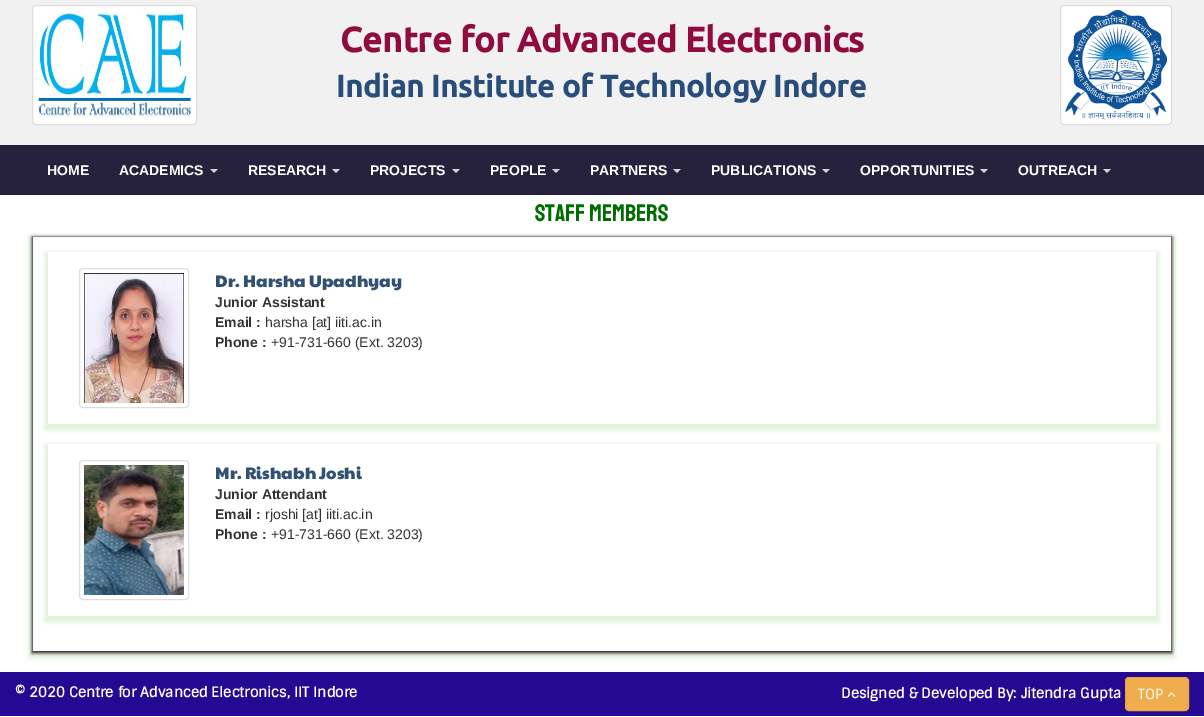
%!PS
<< /PageSize [1204 717] /PageUsesTransparency true >> setpagedevice
/rgb { 3 { 255 div 3 1 roll } repeat setrgbcolor } def
/font { [ exch dup neg 0 0 3 -1 roll 0 0 ] selectfont } def
/alpha { dup .setfillconstantalpha .setstrokeconstantalpha } def
/roundrect { 5 dict begin { /r /h /w /y /x } { exch def } forall
  x r add y moveto x w add y 2 copy h add r arct x w add y h add x 1 index r arct
  x y h add x y r arct x y 2 copy exch w add exch r arct closepath end } def
/shadow { 12 dict begin { /a /b /q /h /w /y /x } { exch def } forall gsave /was 0 def
  9 -2 -9 { dup b mul 4 div /e exch def 1 sub .425 mul 2.718 exch exp 1 add a .99 .min exch div /now exch def
    1 1 now sub 1 was sub div sub alpha /was now def
    w h .min e 2 mul add 0 gt { x e sub y e sub w e 2 mul add h e 2 mul add
      q e add b .6 mul add w h .min 2 div e add .min 0 .max roundrect fill } if } for grestore end } def
/picture { 5 dict begin { /h /w /y /x /name } { exch def } forall
  gsave x y translate w h scale
  w h 8 [w 0 0 h 0 0] name (r) file false 3 colorimage grestore end } def
0 .pushpdf14devicefilter
0 717 translate 1 -1 scale
4 setmiterlimit
255 255 255 rgb
0 0 1204 717 rectfill
241 241 241 rgb
0 0 1204 145 rectfill
255 255 255 rgb
32.5 5.5 164 119 3.5 roundrect gsave fill grestore
221 221 221 rgb
stroke
(img/1.rgb) 37 10 155 108 picture
255 255 255 rgb
1060.5 5.5 111 119 3.5 roundrect gsave fill grestore
221 221 221 rgb
stroke
(img/2.rgb) 1065 10 102 110 picture
38 34 61 rgb
0 145 1204 50 rectfill
211 211 211 rgb
210 169 moveto 218 169 lineto 214 173 lineto closepath fill
332 169 moveto 340 169 lineto 336 173 lineto closepath fill
452 169 moveto 460 169 lineto 456 173 lineto closepath fill
552 169 moveto 560 169 lineto 556 173 lineto closepath fill
673 169 moveto 681 169 lineto 677 173 lineto closepath fill
822 169 moveto 830 169 lineto 826 173 lineto closepath fill
980 169 moveto 988 169 lineto 984 173 lineto closepath fill
1103 169 moveto 1111 169 lineto 1107 173 lineto closepath fill
gsave
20 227 moveto 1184 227 lineto 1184 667 lineto 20 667 lineto closepath 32 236 moveto 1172 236 lineto 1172 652 lineto 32 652 lineto closepath eoclip newpath
223 240 216 rgb
29 236 1146 422 0 2.5 1 shadow
grestore
221 221 221 rgb
32.5 236.5 1139 415 rectstroke
gsave
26 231 moveto 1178 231 lineto 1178 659 lineto 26 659 lineto closepath 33 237 moveto 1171 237 lineto 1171 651 lineto 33 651 lineto closepath eoclip newpath
47 36 36 rgb
32 237 1140 416 0 1.5 1 shadow
grestore
gsave
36 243 moveto 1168 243 lineto 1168 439 lineto 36 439 lineto closepath 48 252 moveto 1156 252 lineto 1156 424 lineto 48 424 lineto closepath eoclip newpath
223 240 216 rgb
45 252 1114 178 0 2.5 1 shadow
grestore
79.5 268.5 109 139 3.5 roundrect stroke
(img/3.rgb) 84 273 100 130 picture
gsave
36 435 moveto 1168 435 lineto 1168 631 lineto 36 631 lineto closepath 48 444 moveto 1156 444 lineto 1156 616 lineto 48 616 lineto closepath eoclip newpath
223 240 216 rgb
45 444 1114 178 0 2.5 1 shadow
grestore
79.5 460.5 109 139 3.5 roundrect stroke
(img/4.rgb) 84 465 100 130 picture
36 10 146 rgb
0 672 1204 44 rectfill
240 173 78 rgb
1125.5 677.5 63 33 3.5 roundrect gsave fill grestore
238 162 54 rgb
stroke
(img/5.rgb) 1167 692 9 5 picture
/Ubuntu-Bold 35 font
144 12 63 rgb
340 52 moveto (Centre for Advanced Electronics) show
/Ubuntu-Bold 30.75 font
40 77 122 rgb
336 97 moveto (Indian Institute of Technology Indore) show
/LiberationSans-Bold 14 font
255 255 255 rgb
[
  [(HOME) 47 175]
  [(ACADEMICS) 119 175]
  [(RESEARCH) 248 175]
  [(PROJECTS) 370 175]
  [(PEOPLE) 490 175]
  [(PARTNERS) 590 175]
  [(PUBLICATIONS) 711 175]
  [(OPPORTUNITIES) 860 175]
  [(OUTREACH) 1018 175]
] { aload pop moveto show } forall
/Staatliches-Regular 24 font
0 109 0 rgb
535 221 moveto (Staff Members) show
/PaytoneOne-Regular 16.75 font
48 81 115 rgb
215 287 moveto (Dr. Harsha Upadhyay) show
/LiberationSans-Bold 14 font
51 51 51 rgb
215 307 moveto (Junior Assistant) show
215 327 moveto (Email :) show
/LiberationSans-Regular 14 font
265 327 moveto (harsha [at] iiti.ac.in) show
/LiberationSans-Bold 14 font
215 347 moveto (Phone :) show
/LiberationSans-Regular 14 font
271 347 moveto (+91-731-660 \(Ext. 3203\)) show
/PaytoneOne-Regular 16.75 font
48 81 115 rgb
215 479 moveto (Mr. Rishabh Joshi) show
/LiberationSans-Bold 14 font
51 51 51 rgb
215 499 moveto (Junior Attendant) show
215 519 moveto (Email :) show
/LiberationSans-Regular 14 font
265 519 moveto (rjoshi [at] iiti.ac.in) show
/LiberationSans-Bold 14 font
215 539 moveto (Phone :) show
/LiberationSans-Regular 14 font
271 539 moveto (+91-731-660 \(Ext. 3203\)) show
/Sintony-Bold 14 font
255 255 255 rgb
15 697 moveto (© 2020 Centre for Advanced Electronics, IIT Indore) show
841 698 moveto (Designed & Developed By: Jitendra Gupta) show
/Sintony-Regular 14 font
1138 699 moveto (TOP) show
.poppdf14devicefilter showpage
